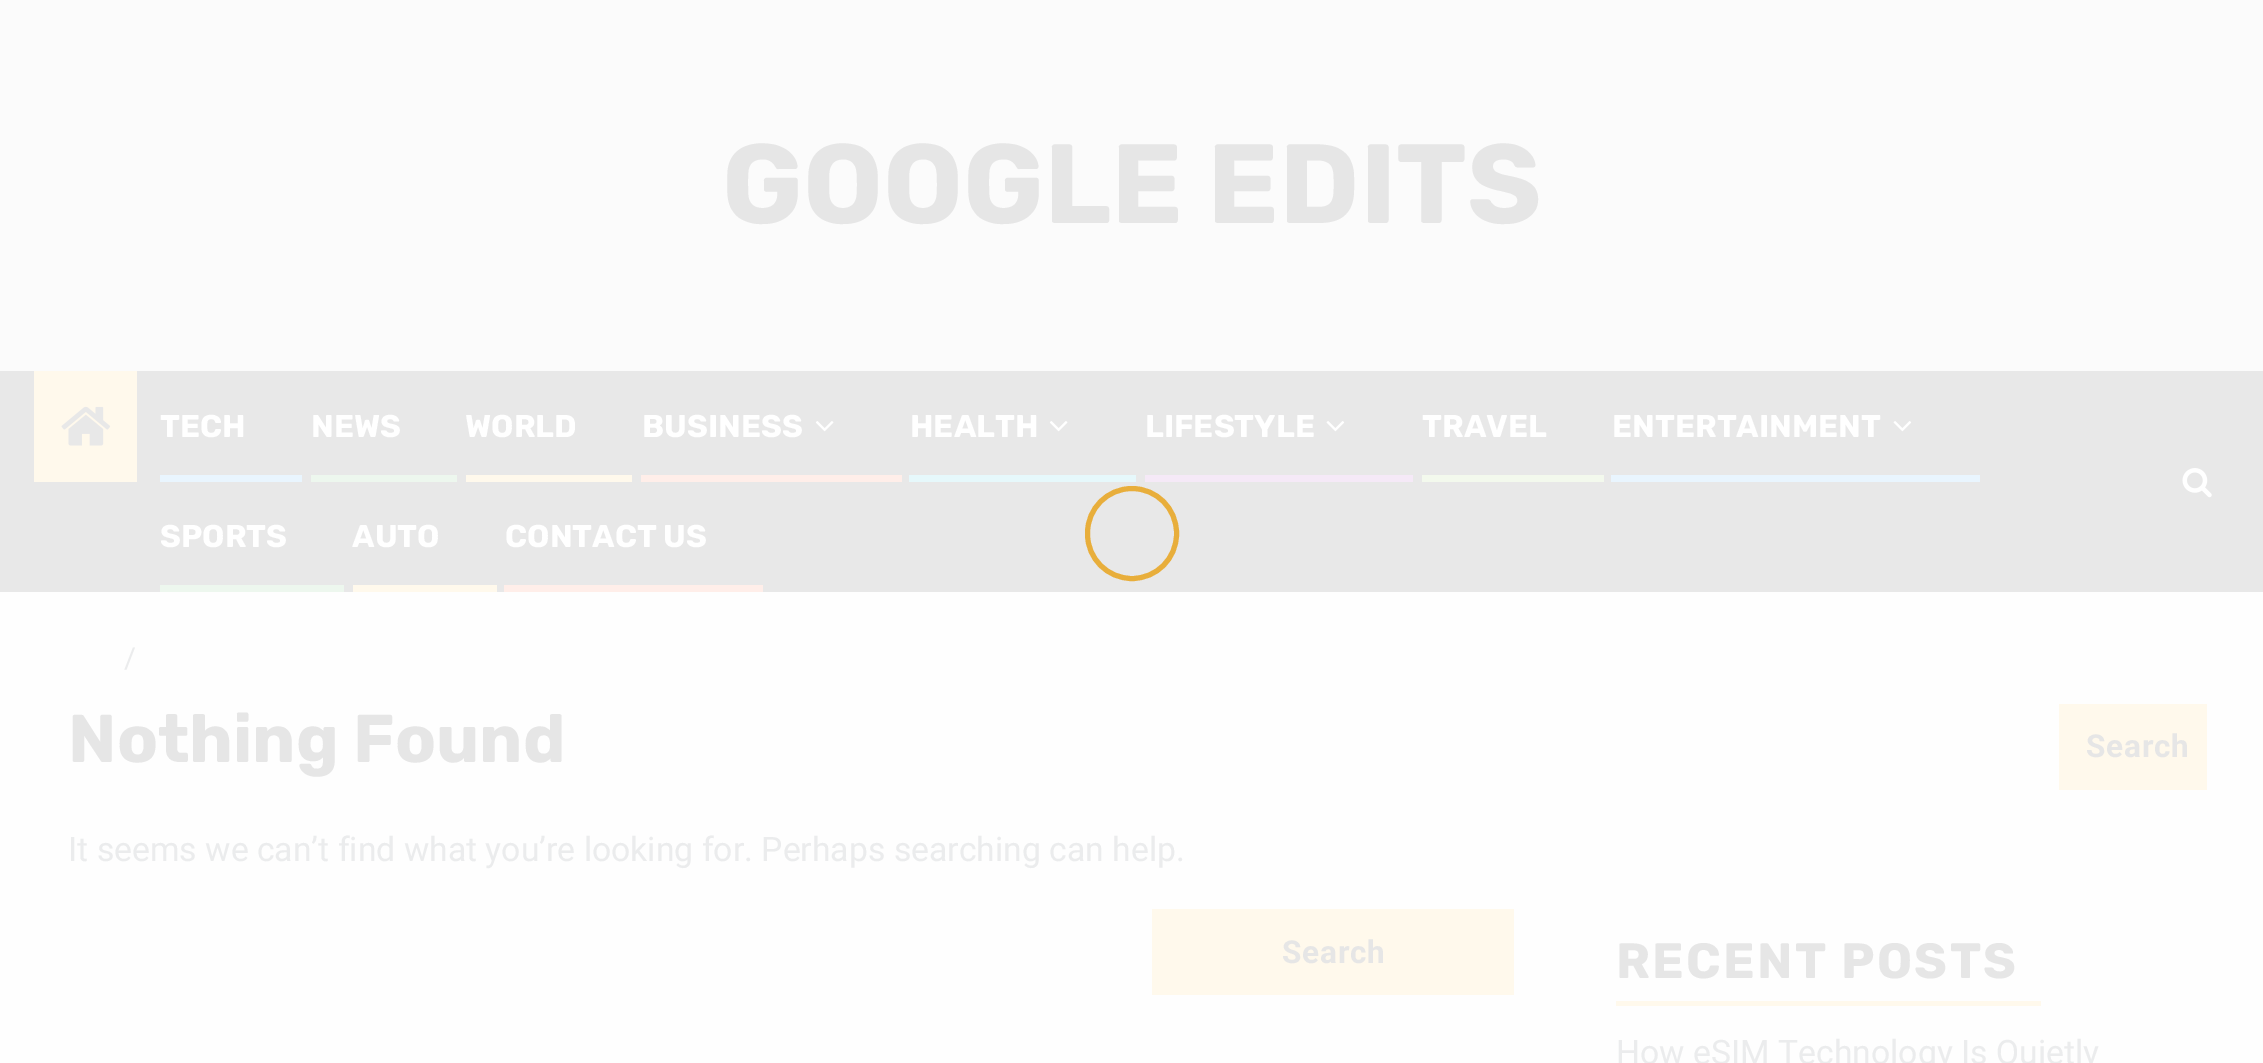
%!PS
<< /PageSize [2263 1063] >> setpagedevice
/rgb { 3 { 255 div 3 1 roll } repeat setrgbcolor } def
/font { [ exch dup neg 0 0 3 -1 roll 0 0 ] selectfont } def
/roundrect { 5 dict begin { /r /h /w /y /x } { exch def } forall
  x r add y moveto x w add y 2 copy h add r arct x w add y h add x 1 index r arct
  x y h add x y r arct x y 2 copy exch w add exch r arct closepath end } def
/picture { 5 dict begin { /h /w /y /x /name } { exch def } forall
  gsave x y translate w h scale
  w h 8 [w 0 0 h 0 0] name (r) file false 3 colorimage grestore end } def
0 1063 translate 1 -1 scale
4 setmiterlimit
254 254 254 rgb
0 0 2263 1063 rectfill
[
  [0 0 2263 371 251 251 251]
  [0 371 2263 221 232 232 232]
  [34 371 103 111 255 249 236]
] { aload pop rgb rectfill } forall
(img/1.rgb) 61 406 50 40 picture
[
  [160 475 142 7 233 245 254]
  [311 475 146 7 237 247 238]
  [466 475 166 7 255 249 236]
] { aload pop rgb rectfill } forall
(img/2.rgb) 815 421 19 11 picture
255 238 233 rgb
641 475 261 7 rectfill
(img/2.rgb) 1049 421 19 11 picture
230 248 251 rgb
909 475 227 7 rectfill
(img/3.rgb) 1326 421 19 11 picture
245 233 247 rgb
1145 475 268 7 rectfill
243 249 237 rgb
1422 475 182 7 rectfill
(img/3.rgb) 1893 421 19 11 picture
[
  [1611 475 369 7 233 245 254]
  [160 585 184 7 237 247 238]
  [353 585 144 7 255 249 236]
  [504 585 259 7 255 238 233]
] { aload pop rgb rectfill } forall
(img/4.rgb) 2182 468 30 30 picture
[
  [1152 909 362 86 255 249 236]
  [2059 704 148 86 255 249 236]
  [1616 1001 425 5 255 249 236]
] { aload pop rgb rectfill } forall
232 174 59 rgb
5 setlinewidth
1087.5 488.5 89 90 44.5 roundrect stroke
/Rubik-Bold 112.5 font
230 230 230 rgb
722 223 moveto (GOOGLE EDITS) show
/Rubik-Bold 31.5 font
255 255 255 rgb
[
  [(TECH) 160 437]
  [(NEWS) 311 437]
  [(WORLD) 465 437]
  [(BUSINESS) 642 437]
  [(HEALTH) 910 437]
  [(LIFESTYLE) 1145 437]
  [(TRAVEL) 1422 437]
  [(ENTERTAINMENT) 1612 437]
  [(SPORTS) 160 547]
  [(AUTO) 352 547]
  [(CONTACT US) 505 547]
] { aload pop moveto show } forall
/Roboto-Regular 29 font
235 236 237 rgb
124 668 moveto (/) show
/Rubik-Bold 67.5 font
230 230 230 rgb
68 762 moveto (Nothing Found) show
/Roboto-Regular 33.75 font
235 236 237 rgb
68 861 moveto (It seems we can’t find what you’re looking for. Perhaps searching can help.) show
/Roboto-Bold 31.5 font
230 230 230 rgb
1282 963 moveto 0.75 0 (Search) ashow
2086 757 moveto 0.75 0 (Search) ashow
/Rubik-Bold 49.5 font
1616 978 moveto 2.25 0 (RECENT POSTS) ashow
/Roboto-Regular 33.75 font
235 236 237 rgb
1616 1064 moveto (How eSIM Technology Is Quietly) show
showpage
